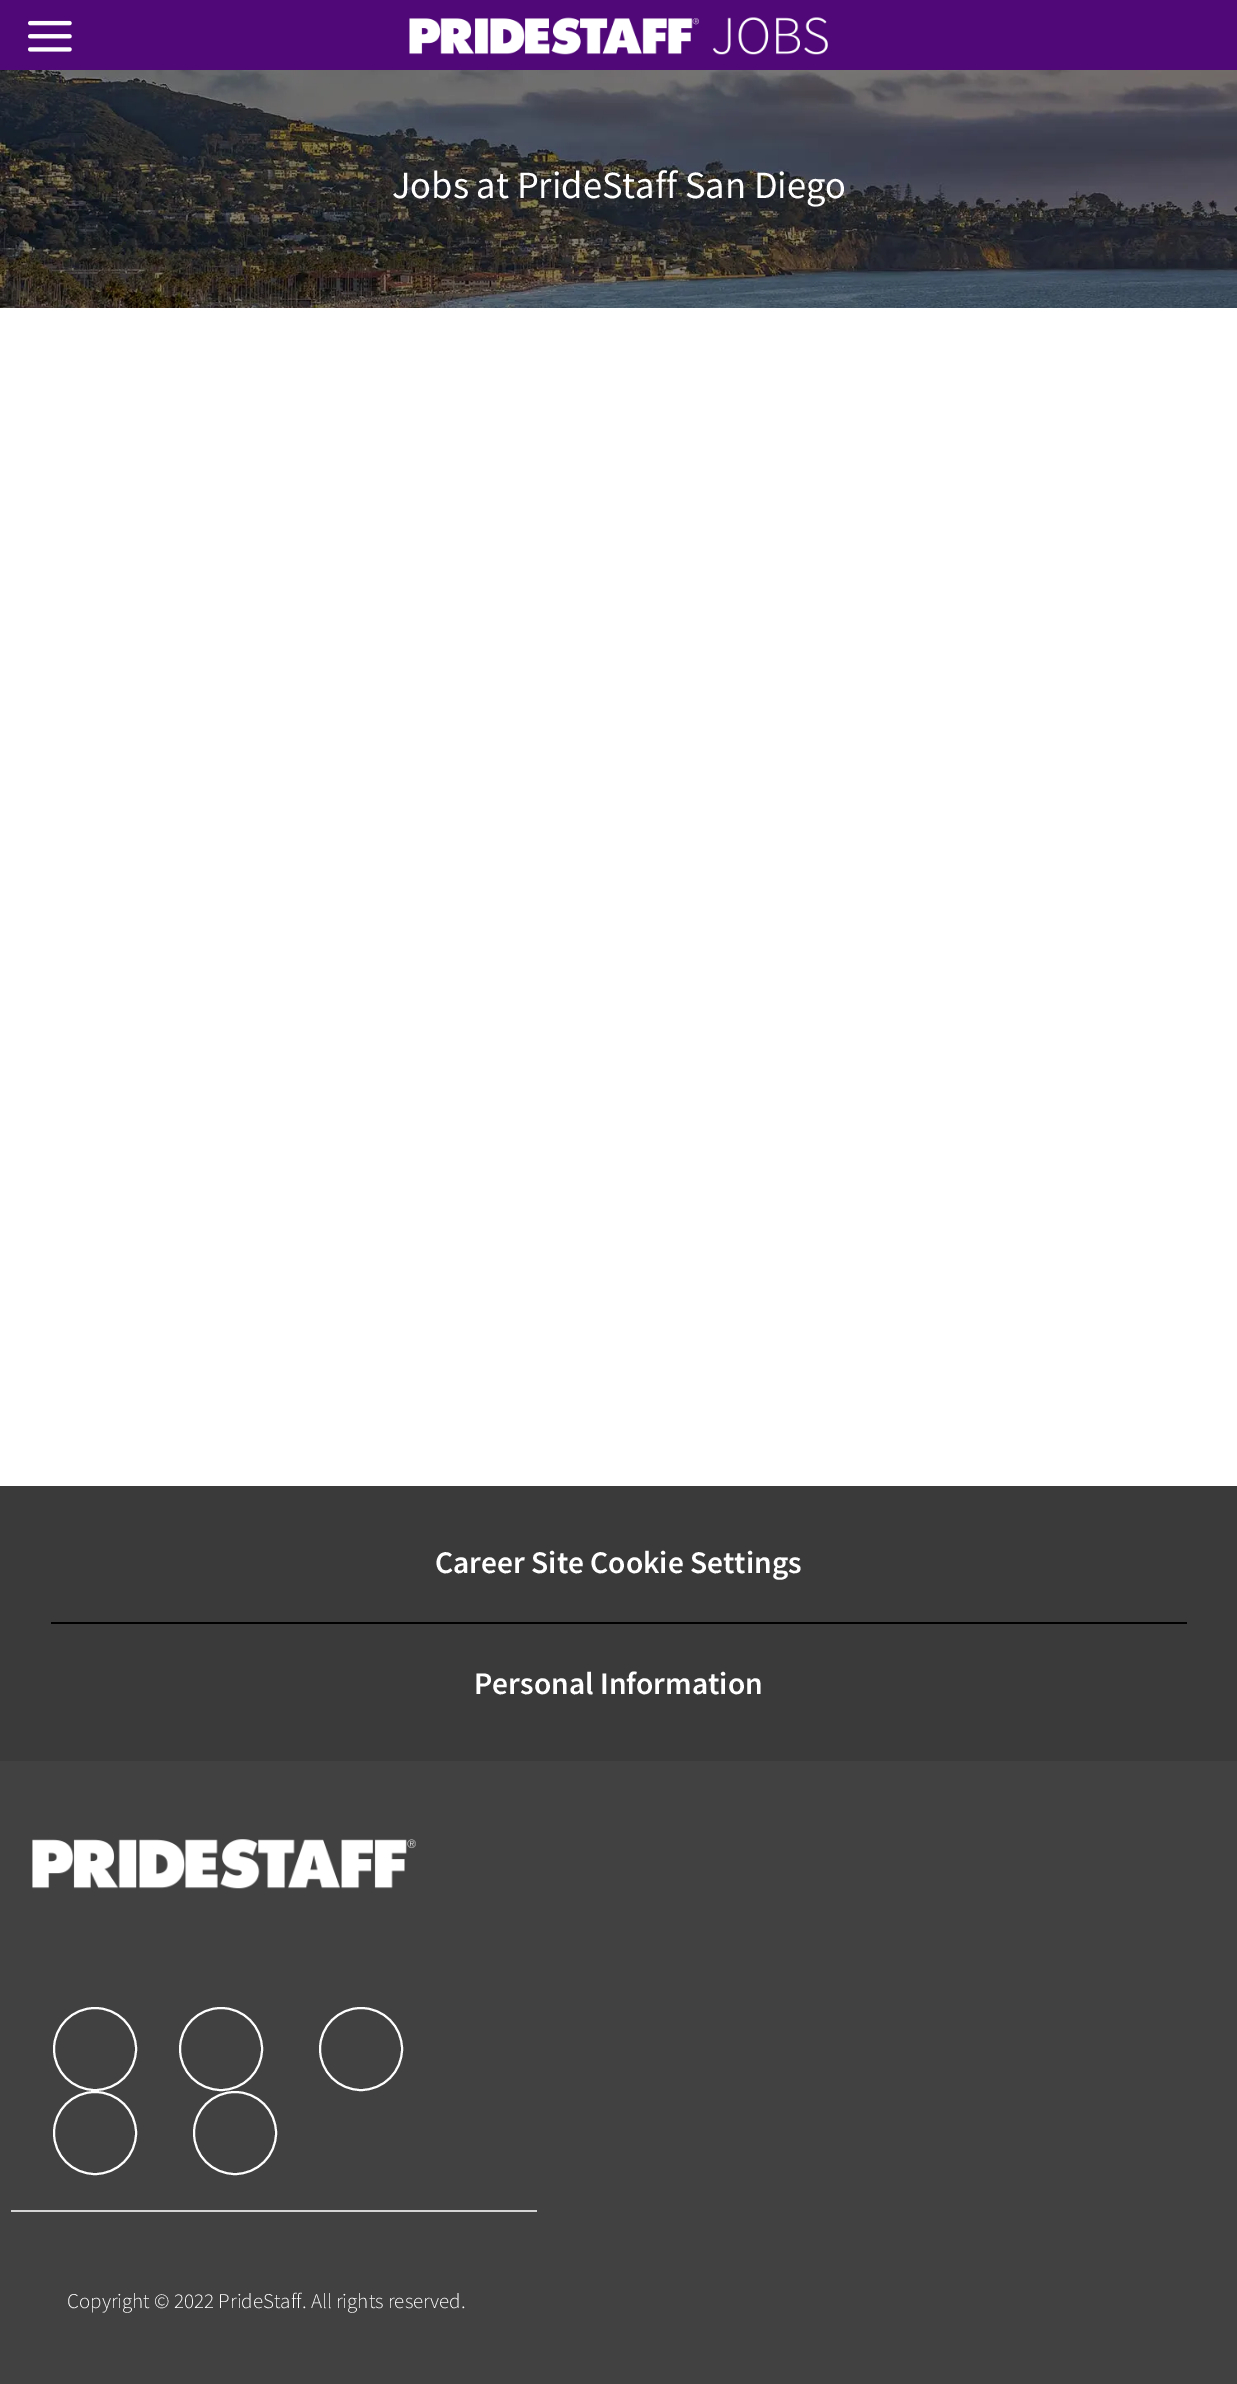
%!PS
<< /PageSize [1237 2384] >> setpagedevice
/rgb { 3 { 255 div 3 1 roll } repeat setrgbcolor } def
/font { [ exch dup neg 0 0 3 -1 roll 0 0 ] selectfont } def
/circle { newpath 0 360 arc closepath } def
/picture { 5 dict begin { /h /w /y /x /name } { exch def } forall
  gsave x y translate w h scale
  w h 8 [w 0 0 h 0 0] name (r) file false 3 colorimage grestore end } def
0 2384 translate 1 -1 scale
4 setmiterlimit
255 255 255 rgb
0 0 1237 2384 rectfill
80 7 120 rgb
0 0 1237 70 rectfill
(img/1.rgb) 28 20 44 32 picture
(img/2.rgb) 409 17 419 38 picture
(img/3.rgb) 0 70 1237 238 picture
[
  [0 1761 1237 623 65 65 65]
  [0 1486 1237 275 58 58 58]
  [51 1622 1136 2 0 0 0]
  [11 2210 526 2 212 212 212]
] { aload pop rgb rectfill } forall
(img/4.rgb) 32 1839 384 50 picture
255 255 255 rgb
2 setlinewidth
95 2049 41 circle stroke
221 2049 41 circle stroke
361 2049 41 circle stroke
95 2133 41 circle stroke
235 2133 41 circle stroke
/SourceSansPro-Regular 38.5 font
392 198 moveto (Jobs at PrideStaff San Diego) show
/SourceSansPro-SemiBold 31.5 font
435 1573 moveto (Career Site Cookie Settings) show
474 1694 moveto (Personal Information) show
/SourceSansPro-Light 21 font
67 2308 moveto (Copyright © 2022 PrideStaff. All rights reserved.) show
showpage
